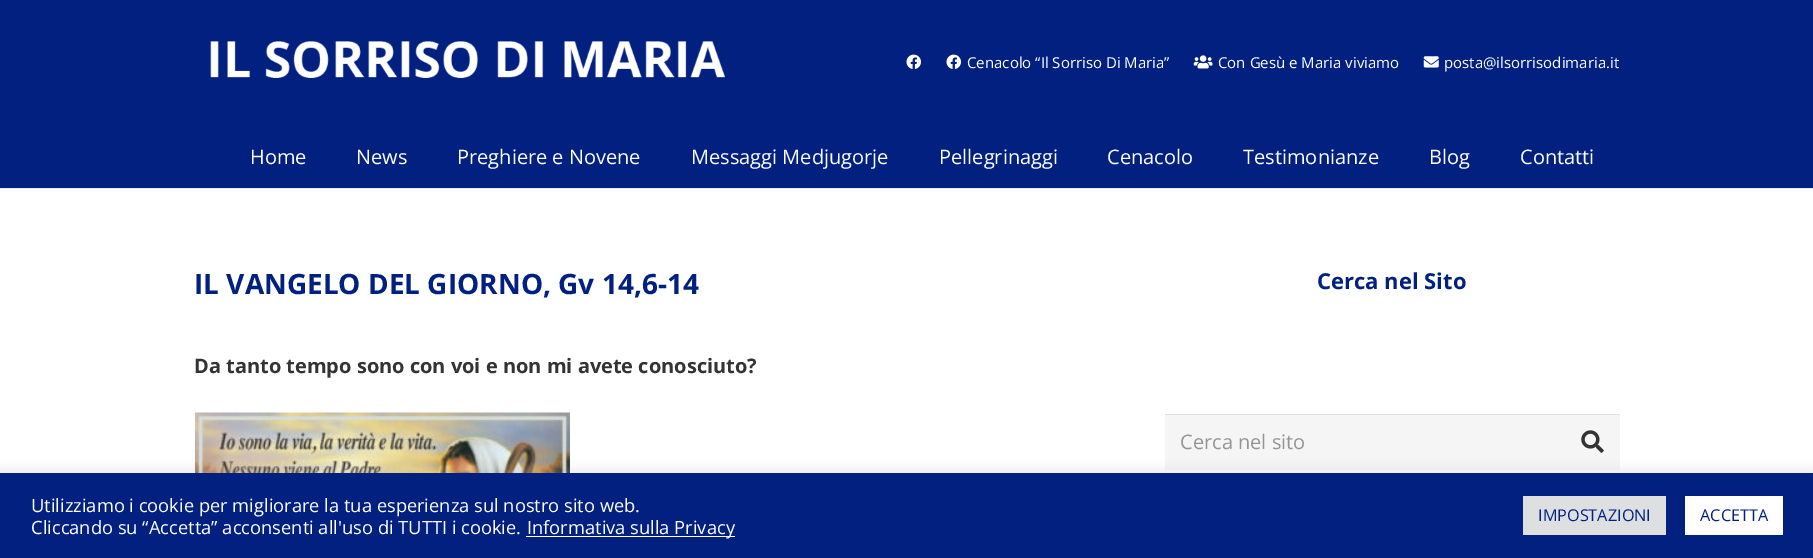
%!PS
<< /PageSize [1813 558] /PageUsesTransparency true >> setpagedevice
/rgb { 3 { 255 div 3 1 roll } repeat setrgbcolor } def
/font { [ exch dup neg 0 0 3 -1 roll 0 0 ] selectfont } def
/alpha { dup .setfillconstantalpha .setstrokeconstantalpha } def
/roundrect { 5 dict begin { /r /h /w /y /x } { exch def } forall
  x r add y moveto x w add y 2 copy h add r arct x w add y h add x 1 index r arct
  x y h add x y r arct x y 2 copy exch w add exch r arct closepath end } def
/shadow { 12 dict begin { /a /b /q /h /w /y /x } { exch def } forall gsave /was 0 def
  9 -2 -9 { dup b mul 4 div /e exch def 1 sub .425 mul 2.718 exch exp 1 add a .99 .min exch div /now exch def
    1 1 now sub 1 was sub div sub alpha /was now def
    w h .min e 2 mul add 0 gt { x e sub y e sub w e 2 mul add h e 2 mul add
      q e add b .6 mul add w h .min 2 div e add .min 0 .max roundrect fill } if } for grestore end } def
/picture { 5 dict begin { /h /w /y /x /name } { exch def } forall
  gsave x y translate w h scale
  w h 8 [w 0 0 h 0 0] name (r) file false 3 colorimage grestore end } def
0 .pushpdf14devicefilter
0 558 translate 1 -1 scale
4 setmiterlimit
255 255 255 rgb
0 0 1813 558 rectfill
1 32 128 rgb
0 0 1813 188 rectfill
(img/1.rgb) 210 41 516 37 picture
(img/2.rgb) 906 54 15 15 picture
(img/2.rgb) 946 54 15 15 picture
(img/3.rgb) 1193 55 20 14 picture
(img/4.rgb) 1423 56 16 12 picture
235 235 235 rgb
0 188 moveto 0 189 lineto 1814 189 lineto 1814 126 lineto 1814 188 lineto closepath fill
(img/5.rgb) 195 412 375 61 picture
245 245 245 rgb
1165 415 455 55 rectfill
225 225 225 rgb
1165 414 455 1 rectfill
(img/6.rgb) 1581 430 23 23 picture
172 171 171 rgb
0 471 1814 87 0 6 0.3 shadow
[
  [0 473 1813 85 1 32 128]
  [526 536 209 1 255 255 255]
  [1523 496 143 39 222 223 224]
  [1685 496 98 39 255 255 255]
] { aload pop rgb rectfill } forall
/OpenSans-Regular 15 font
[
  [(Cenacolo “Il Sorriso Di Maria”) 967 68]
  [(Con Gesù e Maria viviamo) 1218 68]
  [(posta@ilsorrisodimaria.it) 1444 68]
] { aload pop moveto show } forall
/OpenSans-Regular 20 font
[
  [(Home) 250 164]
  [(News) 356 164]
  [(Preghiere e Novene) 457 164]
  [(Messaggi Medjugorje) 691 164]
  [(Pellegrinaggi) 939 164]
  [(Cenacolo) 1107 164]
  [(Testimonianze) 1243 164]
  [(Blog) 1429 164]
  [(Contatti) 1520 164]
] { aload pop moveto show } forall
/OpenSans-Bold 28 font
1 32 128 rgb
194 294 moveto (IL VANGELO DEL GIORNO, Gv 14,6-14) show
/OpenSans-Bold 20 font
51 51 51 rgb
194 373 moveto (Da tanto tempo sono con voi e non mi avete conosciuto?) show
/OpenSans-Bold 22 font
1 32 128 rgb
1317 289 moveto (Cerca nel Sito) show
/OpenSans-Regular 20 font
148 148 148 rgb
1180 449 moveto (Cerca nel sito) show
/OpenSans-Regular 18.3 font
255 255 255 rgb
[
  [(Utilizziamo i cookie per migliorare la tua esperienza sul nostro sito web.) 31 512]
  [(Cliccando su “Accetta” acconsenti all'uso di TUTTI i cookie.) 31 534]
  [(Informativa sulla Privacy) 527 534]
] { aload pop moveto show } forall
/OpenSans-Regular 16.25 font
1 32 128 rgb
1538 521 moveto (IMPOSTAZIONI) show
1700 521 moveto (ACCETTA) show
.poppdf14devicefilter showpage
